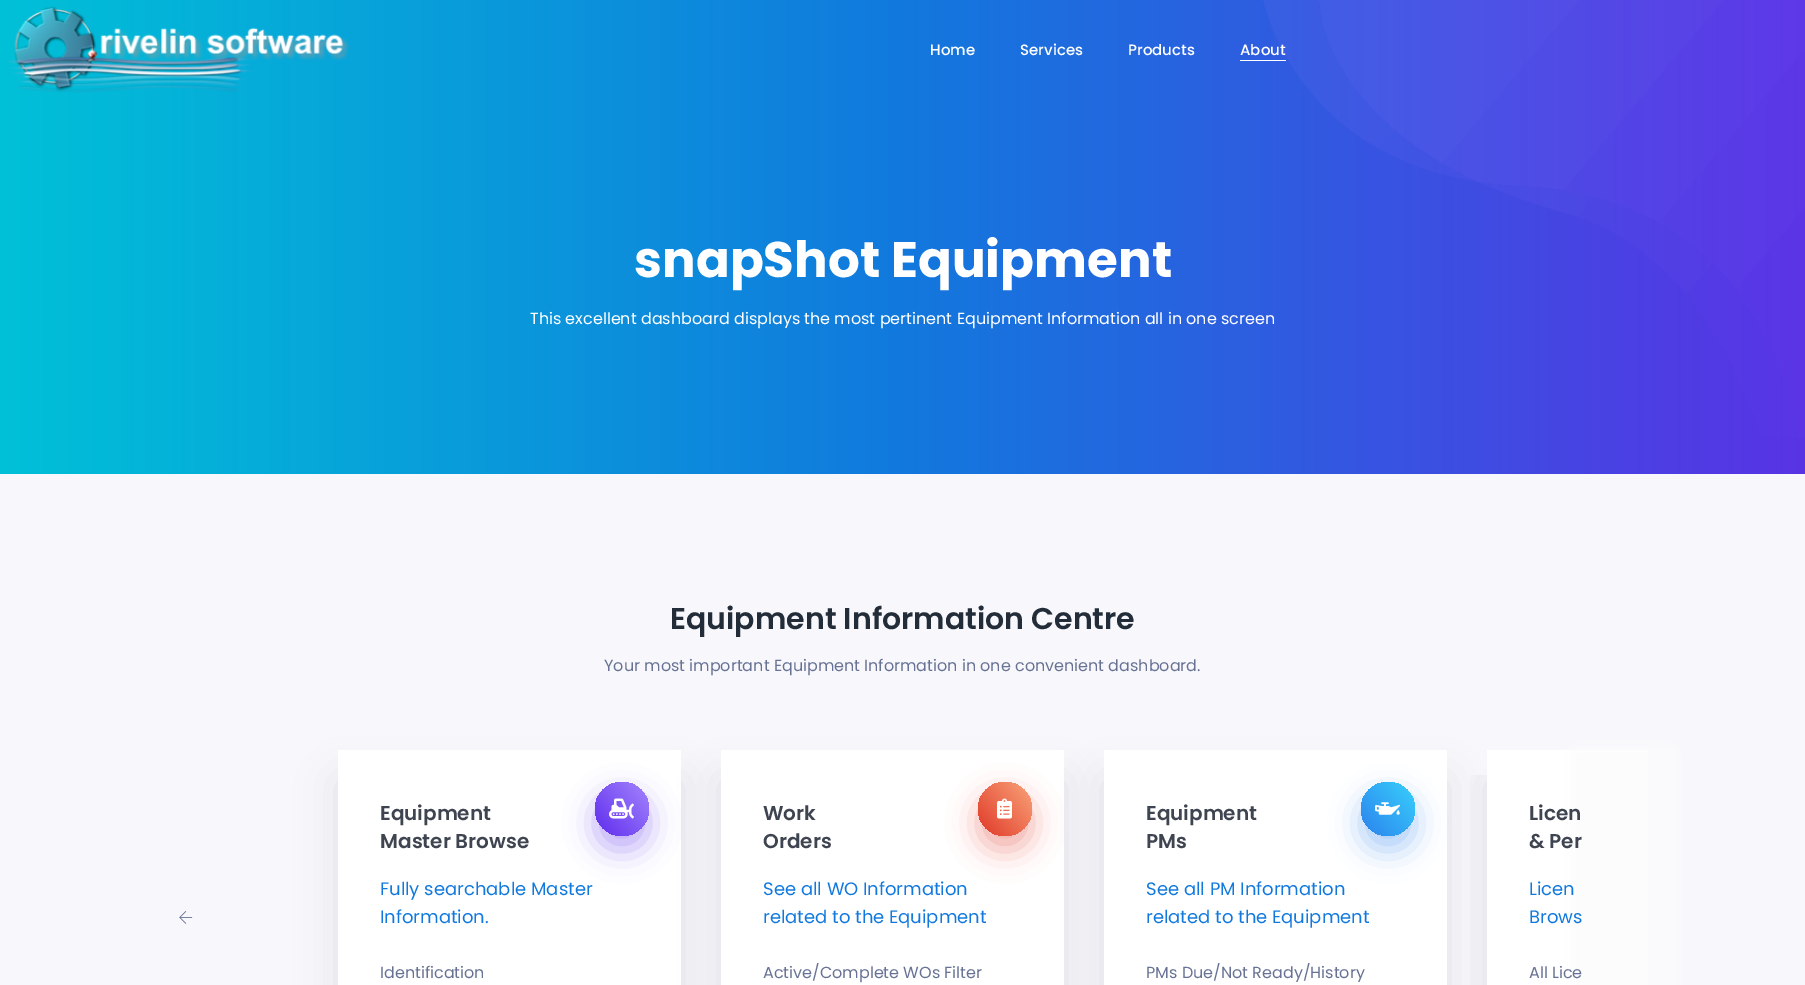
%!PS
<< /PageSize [1805 985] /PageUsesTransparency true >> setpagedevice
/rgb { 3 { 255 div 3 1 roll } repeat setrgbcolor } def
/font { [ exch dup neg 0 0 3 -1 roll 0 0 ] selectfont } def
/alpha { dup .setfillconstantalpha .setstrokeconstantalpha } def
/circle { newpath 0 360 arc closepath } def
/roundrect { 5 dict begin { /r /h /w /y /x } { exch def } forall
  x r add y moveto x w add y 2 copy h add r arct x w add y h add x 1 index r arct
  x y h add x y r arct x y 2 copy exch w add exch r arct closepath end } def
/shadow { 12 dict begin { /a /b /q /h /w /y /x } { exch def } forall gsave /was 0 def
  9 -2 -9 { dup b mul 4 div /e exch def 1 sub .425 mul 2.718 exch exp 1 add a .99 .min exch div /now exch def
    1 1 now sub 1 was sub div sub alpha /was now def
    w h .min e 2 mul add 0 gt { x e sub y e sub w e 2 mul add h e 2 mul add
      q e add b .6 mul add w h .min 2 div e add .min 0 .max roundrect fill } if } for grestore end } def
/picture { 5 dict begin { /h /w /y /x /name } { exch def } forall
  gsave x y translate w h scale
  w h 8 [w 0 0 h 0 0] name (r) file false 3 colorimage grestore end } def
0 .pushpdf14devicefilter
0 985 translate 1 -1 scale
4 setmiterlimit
255 255 255 rgb
0 0 1805 985 rectfill
(img/2.rgb) 0 0 1805 474 picture
(img/1.rgb) 5 6 344 87 picture
(img/3.rgb) 1263 0 542 438 picture
1240 60 46 1 rectfill
248 248 252 rgb
0 474 1805 511 rectfill
(img/4.rgb) 179 911 14 13 picture
12 0 46 rgb
338 780 343 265 0 20 0.1 shadow
255 255 255 rgb
338 750 343 235 rectfill
94 44 237 rgb
595 796 54 54 27 15 0.4 shadow
gsave 622 809 27 circle clip newpath
<< /ShadingType 2 /ColorSpace /DeviceRGB /Coords [593 833 651 785] /Extend [true true] /Function << /FunctionType 2 /Domain [0 1] /C0 [0.369 0.173 0.929] /C1 [0.643 0.522 0.992] /N 1 >> >> shfill grestore
(img/5.rgb) 609 798 25 21 picture
12 0 46 rgb
721 780 343 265 0 20 0.1 shadow
255 255 255 rgb
721 750 343 235 rectfill
224 56 39 rgb
978 796 54 54 27 15 0.4 shadow
gsave 1005 809 27 circle clip newpath
<< /ShadingType 2 /ColorSpace /DeviceRGB /Coords [976 833 1034 785] /Extend [true true] /Function << /FunctionType 2 /Domain [0 1] /C0 [0.878 0.22 0.153] /C1 [0.976 0.643 0.478] /N 1 >> >> shfill grestore
(img/6.rgb) 997 798 15 21 picture
12 0 46 rgb
1104 780 343 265 0 20 0.1 shadow
255 255 255 rgb
1104 750 343 235 rectfill
44 130 237 rgb
1361 796 54 54 27 15 0.4 shadow
gsave 1388 809 27 circle clip newpath
<< /ShadingType 2 /ColorSpace /DeviceRGB /Coords [1359 833 1417 785] /Extend [true true] /Function << /FunctionType 2 /Domain [0 1] /C0 [0.173 0.51 0.929] /C1 [0.22 0.816 0.988] /N 1 >> >> shfill grestore
(img/7.rgb) 1375 802 25 13 picture
gsave
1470 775 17 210 rectclip
12 0 46 rgb
1487 780 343 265 0 20 0.1 shadow
grestore
255 255 255 rgb
1487 750 161 235 rectfill
gsave
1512 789 moveto 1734 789 lineto 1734 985 lineto 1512 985 lineto closepath 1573 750 moveto 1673 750 lineto 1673 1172 lineto 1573 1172 lineto closepath eoclip newpath
251 251 251 rgb
1573 850 100 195 0 20 0.1 shadow
grestore
251 251 251 rgb
1573 750 100 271 0 12 1 shadow
/Poppins-Medium 15 font
255 255 255 rgb
[
  [(Home) 930 55]
  [(Services) 1020 55]
  [(Products) 1128 55]
  [(About) 1240 55]
] { aload pop moveto show } forall
/Poppins-Bold 50 font
634 277 moveto (snapShot Equipment) show
/Poppins-Regular 16 font
530 324 moveto (This excellent dashboard displays the most pertinent Equipment Information all in one screen) show
/Poppins-SemiBold 30 font
34 45 57 rgb
670 629 moveto (Equipment Information Centre) show
/Poppins-Regular 16 font
103 114 148 rgb
604 671 moveto (Your most important Equipment Information in one convenient dashboard.) show
/Poppins-SemiBold 20 font
63 68 81 rgb
380 820 moveto (Equipment) show
380 848 moveto (Master Browse) show
/Poppins-Regular 18 font
17 121 221 rgb
380 895 moveto (Fully searchable Master) show
380 923 moveto (Information.) show
/Poppins-Regular 16 font
103 114 148 rgb
380 978 moveto (Identification) show
/Poppins-SemiBold 20 font
63 68 81 rgb
763 820 moveto (Work) show
763 848 moveto (Orders) show
/Poppins-Regular 18 font
17 121 221 rgb
763 895 moveto (See all WO Information) show
763 923 moveto (related to the Equipment) show
/Poppins-Regular 16 font
103 114 148 rgb
763 978 moveto (Active/Complete WOs Filter) show
/Poppins-SemiBold 20 font
63 68 81 rgb
1146 820 moveto (Equipment) show
1146 848 moveto (PMs) show
/Poppins-Regular 18 font
17 121 221 rgb
1146 895 moveto (See all PM Information) show
1146 923 moveto (related to the Equipment) show
/Poppins-Regular 16 font
103 114 148 rgb
1146 978 moveto (PMs Due/Not Ready/History) show
/Poppins-SemiBold 20 font
63 68 81 rgb
1529 820 moveto (Licen) show
1529 848 moveto (& Per) show
/Poppins-Regular 18 font
17 121 221 rgb
1529 895 moveto (Licen) show
1529 923 moveto (Brows) show
/Poppins-Regular 16 font
103 114 148 rgb
1529 978 moveto (All Lice) show
.poppdf14devicefilter showpage
